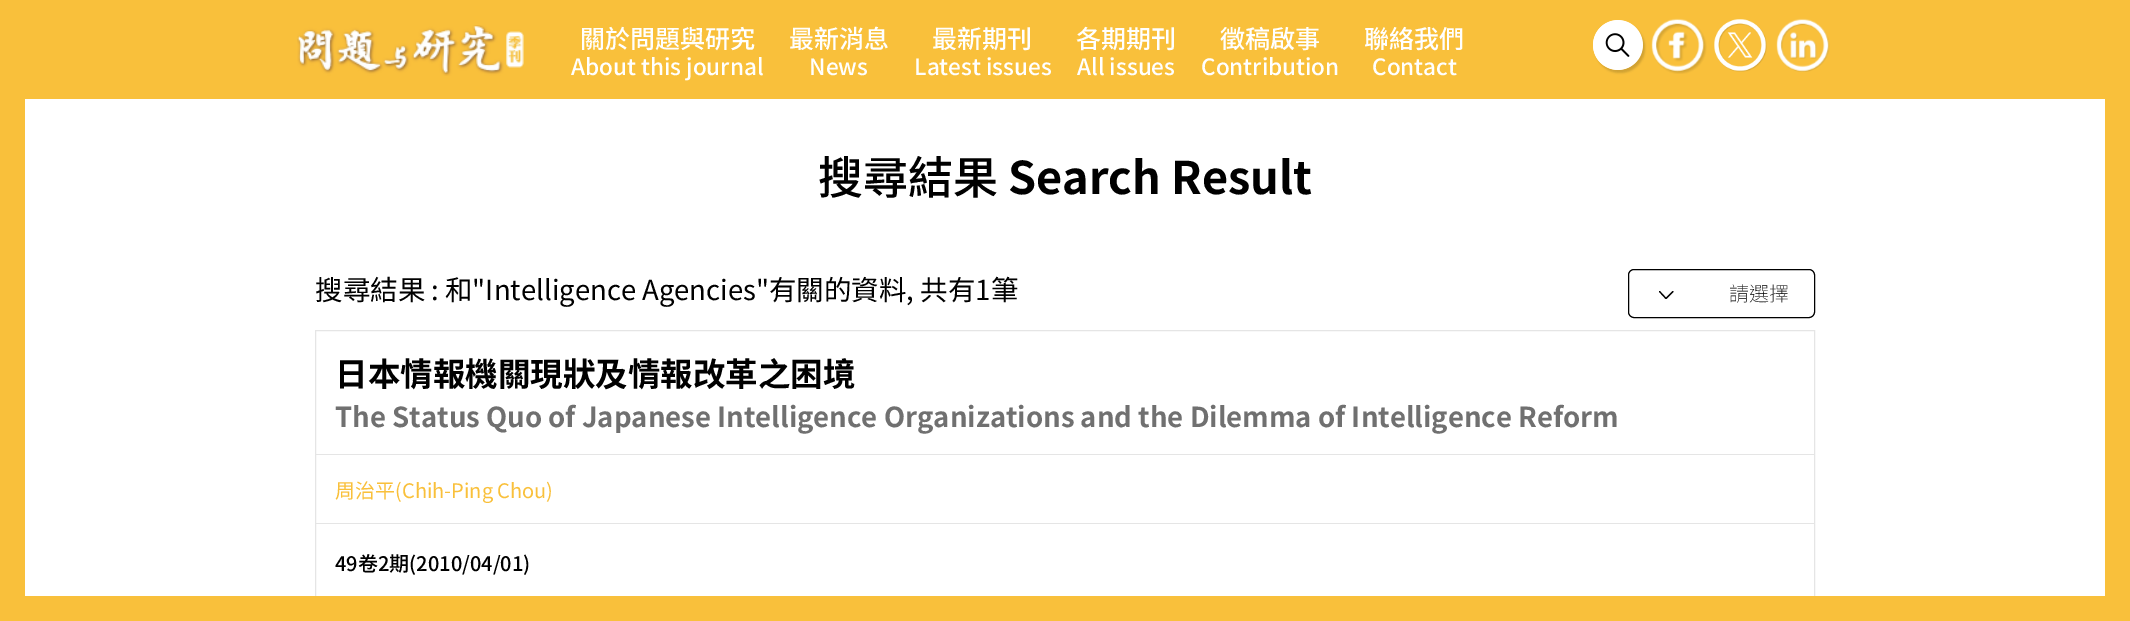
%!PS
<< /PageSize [2130 621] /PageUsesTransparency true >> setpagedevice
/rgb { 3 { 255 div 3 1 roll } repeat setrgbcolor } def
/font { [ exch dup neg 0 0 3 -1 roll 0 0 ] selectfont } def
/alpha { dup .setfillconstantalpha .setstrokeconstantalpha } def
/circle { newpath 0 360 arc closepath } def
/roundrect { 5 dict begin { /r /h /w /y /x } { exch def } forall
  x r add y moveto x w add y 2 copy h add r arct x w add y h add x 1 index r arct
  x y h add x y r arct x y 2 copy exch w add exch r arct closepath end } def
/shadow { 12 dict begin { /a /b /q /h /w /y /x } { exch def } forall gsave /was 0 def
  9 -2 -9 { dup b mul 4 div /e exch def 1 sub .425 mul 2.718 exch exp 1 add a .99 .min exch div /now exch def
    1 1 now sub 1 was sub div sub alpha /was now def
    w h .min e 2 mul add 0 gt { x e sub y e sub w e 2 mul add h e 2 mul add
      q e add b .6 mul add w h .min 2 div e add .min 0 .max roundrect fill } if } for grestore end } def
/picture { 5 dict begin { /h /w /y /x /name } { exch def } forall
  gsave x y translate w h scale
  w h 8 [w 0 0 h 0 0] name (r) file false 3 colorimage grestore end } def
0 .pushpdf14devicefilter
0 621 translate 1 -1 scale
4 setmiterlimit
255 255 255 rgb
0 0 2130 621 rectfill
249 192 59 rgb
0 0 25 596 rectfill
25 0 2080 99 rectfill
(img/1.rgb) 297 25 227 51 picture
0 0 0 rgb
1595 23 50 50 25 1 0.16 shadow
255 255 255 rgb
1618 45 25 circle fill
(img/2.rgb) 1593 20 50 50 picture
(img/3.rgb) 1651 18 56 56 picture
(img/4.rgb) 1714 19 53 53 picture
(img/5.rgb) 1776 18 54 54 picture
249 192 59 rgb
2105 0 25 596 rectfill
0 0 0 rgb
1628.5 269.5 186 48 5.5 roundrect stroke
1.2 setlinewidth
1 setlinecap
1 setlinejoin
1659.5 291.5 moveto 1666 298.5 lineto 1673 291.5 lineto stroke
229 229 229 rgb
1 setlinewidth
0 setlinecap
0 setlinejoin
315.5 330.5 1499 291 rectstroke
[
  [316 454 1498 1 229 229 229]
  [316 523 1498 1 229 229 229]
  [0 596 2130 25 249 192 59]
] { aload pop rgb rectfill } forall
/NotoSansTC-Medium 25 font
255 255 255 rgb
580 48 moveto (關於問題與研究) show
/NotoSansTC-Medium 22.5 font
571 75 moveto (About this journal) show
/NotoSansTC-Medium 25 font
789 48 moveto (最新消息) show
/NotoSansTC-Medium 22.5 font
809 75 moveto (News) show
/NotoSansTC-Medium 25 font
932 48 moveto (最新期刊) show
/NotoSansTC-Medium 22.5 font
914 75 moveto (Latest issues) show
/NotoSansTC-Medium 25 font
1076 48 moveto (各期期刊) show
/NotoSansTC-Medium 22.5 font
1077 75 moveto (All issues) show
/NotoSansTC-Medium 25 font
1220 48 moveto (徵稿啟事) show
/NotoSansTC-Medium 22.5 font
1201 75 moveto (Contribution) show
/NotoSansTC-Medium 25 font
1364 48 moveto (聯絡我們) show
/NotoSansTC-Medium 22.5 font
1372 75 moveto (Contact) show
/NotoSansTC-Medium 45 font
0 0 0 rgb
818 194 moveto (搜尋結果) show
/NotoSansTC-Bold 45 font
1008 194 moveto (Search Result) show
/NotoSansTC-Regular 27.5 font
315 300 moveto (搜尋結果 : 和"Intelligence Agencies"有關的資料, 共有1筆) show
/NotoSansTC-Thin 20 font
1729 301 moveto (請選擇) show
/NotoSansTC-Bold 32.5 font
335 386 moveto (日本情報機關現狀及情報改革之困境) show
/NotoSansTC-Bold 27.5 font
112 112 112 rgb
335 427 moveto (The Status Quo of Japanese Intelligence Organizations and the Dilemma of Intelligence Reform) show
/NotoSansTC-Regular 20 font
249 192 59 rgb
335 498 moveto (周治平\(Chih-Ping Chou\)) show
/NotoSansTC-Medium 20 font
0 0 0 rgb
335 571 moveto (49卷2期\(2010/04/01\)) show
.poppdf14devicefilter showpage
